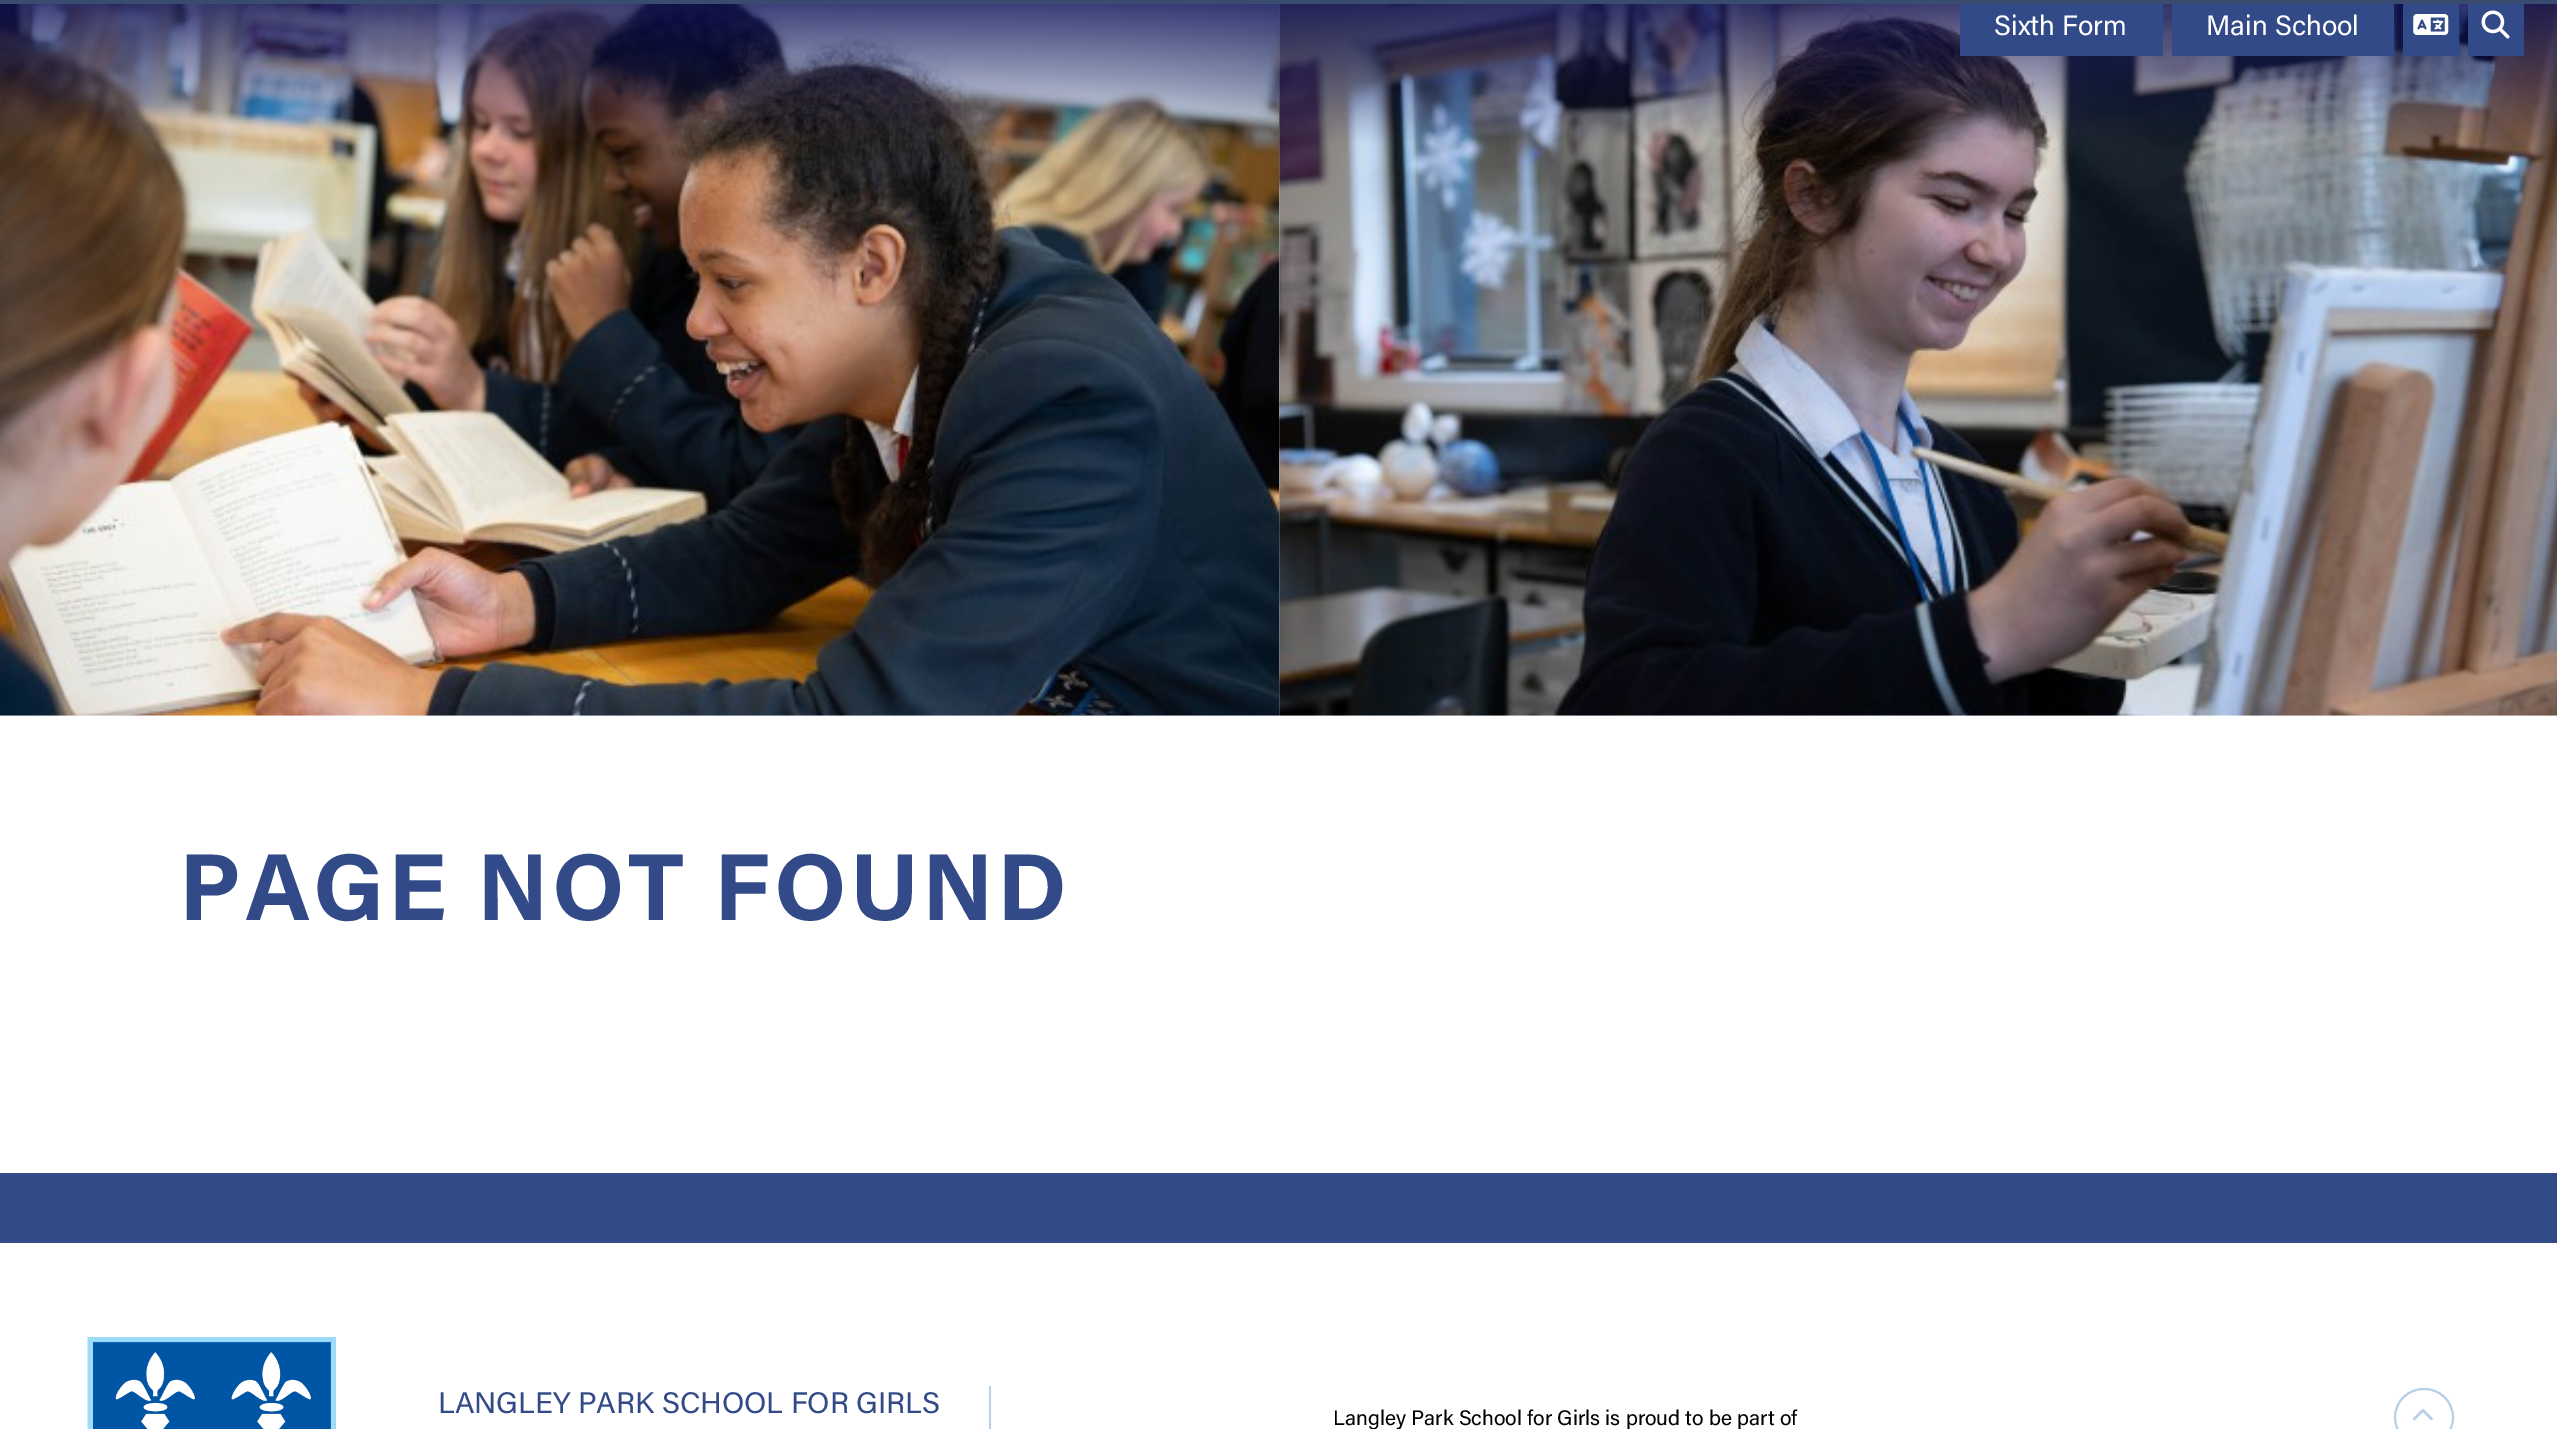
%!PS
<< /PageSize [2557 1429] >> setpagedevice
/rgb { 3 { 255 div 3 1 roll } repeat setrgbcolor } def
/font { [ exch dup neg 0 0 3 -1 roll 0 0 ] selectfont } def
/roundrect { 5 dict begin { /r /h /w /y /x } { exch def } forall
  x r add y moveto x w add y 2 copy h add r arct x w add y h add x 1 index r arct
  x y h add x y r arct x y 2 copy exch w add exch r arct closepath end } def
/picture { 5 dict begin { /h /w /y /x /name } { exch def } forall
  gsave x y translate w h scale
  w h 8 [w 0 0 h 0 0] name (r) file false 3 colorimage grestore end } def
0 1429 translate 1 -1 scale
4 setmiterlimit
255 255 255 rgb
0 0 2557 1429 rectfill
57 76 111 rgb
0 0 2557 4 rectfill
(img/1.rgb) 0 4 1280 712 picture
(img/2.rgb) 1279 4 1278 712 picture
[
  [1960 4 203 52 50 74 135]
  [2172 4 222 52 50 74 135]
  [2403 4 56 52 50 74 135]
] { aload pop rgb rectfill } forall
(img/3.rgb) 2413 14 36 21 picture
2468 4 56 52 rectfill
(img/4.rgb) 2481 10 29 29 picture
0 1173 2557 70 rectfill
(img/5.rgb) 87 1337 249 92 picture
185 207 230 rgb
2 setlinewidth
2395 1389 58 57 28.5 roundrect stroke
(img/6.rgb) 2413 1408 20 13 picture
989 1386 2 43 rectfill
/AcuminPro-Regular 28 font
255 255 255 rgb
1994 35 moveto (Sixth Form) show
2206 35 moveto (Main School) show
/AcuminPro-Bold 95 font
50 74 135 rgb
179 920 moveto 3.5 0 (PAGE NOT FOUND) ashow
/AcuminPro-Regular 29.75 font
438 1413 moveto (LANGLEY PARK SCHOOL FOR GIRLS) show
/AcuminPro-Regular 21 font
0 0 0 rgb
1333 1425 moveto (Langley Park School for Girls is proud to be part of) show
showpage
